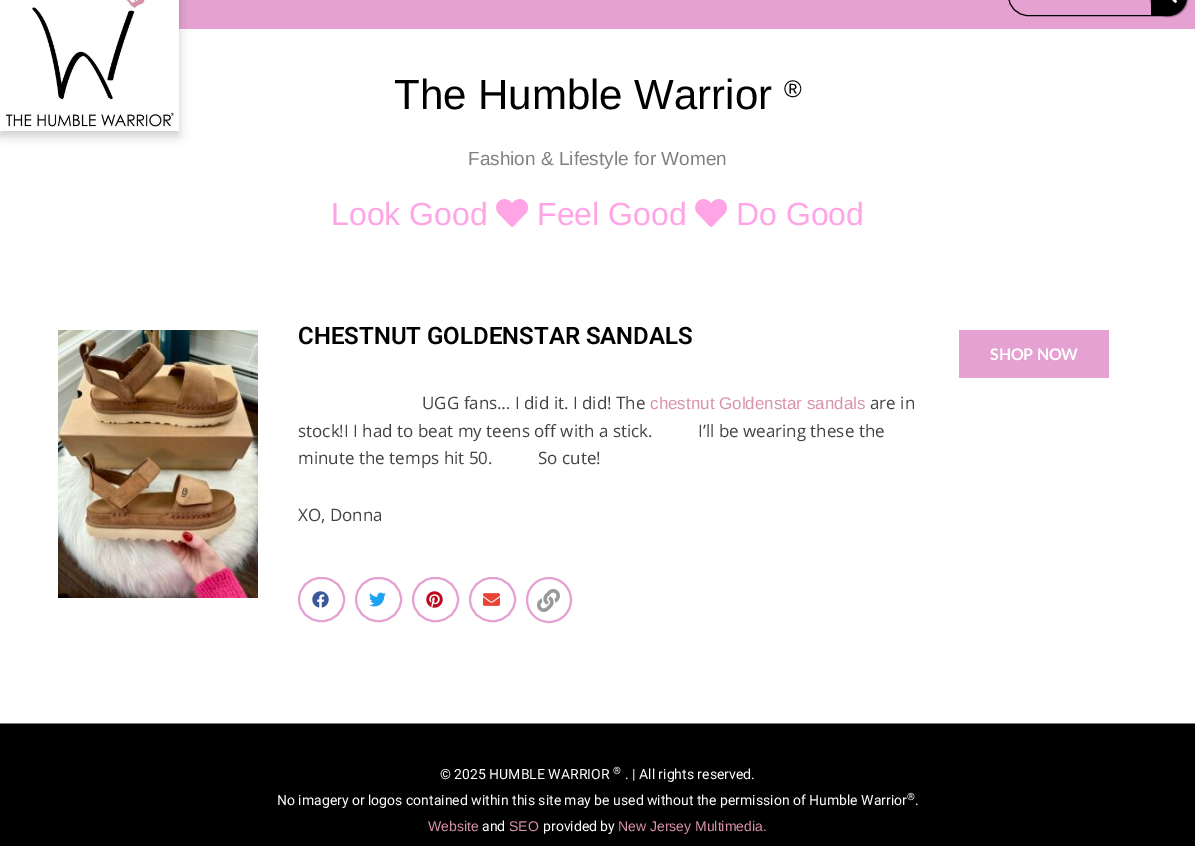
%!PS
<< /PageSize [1195 846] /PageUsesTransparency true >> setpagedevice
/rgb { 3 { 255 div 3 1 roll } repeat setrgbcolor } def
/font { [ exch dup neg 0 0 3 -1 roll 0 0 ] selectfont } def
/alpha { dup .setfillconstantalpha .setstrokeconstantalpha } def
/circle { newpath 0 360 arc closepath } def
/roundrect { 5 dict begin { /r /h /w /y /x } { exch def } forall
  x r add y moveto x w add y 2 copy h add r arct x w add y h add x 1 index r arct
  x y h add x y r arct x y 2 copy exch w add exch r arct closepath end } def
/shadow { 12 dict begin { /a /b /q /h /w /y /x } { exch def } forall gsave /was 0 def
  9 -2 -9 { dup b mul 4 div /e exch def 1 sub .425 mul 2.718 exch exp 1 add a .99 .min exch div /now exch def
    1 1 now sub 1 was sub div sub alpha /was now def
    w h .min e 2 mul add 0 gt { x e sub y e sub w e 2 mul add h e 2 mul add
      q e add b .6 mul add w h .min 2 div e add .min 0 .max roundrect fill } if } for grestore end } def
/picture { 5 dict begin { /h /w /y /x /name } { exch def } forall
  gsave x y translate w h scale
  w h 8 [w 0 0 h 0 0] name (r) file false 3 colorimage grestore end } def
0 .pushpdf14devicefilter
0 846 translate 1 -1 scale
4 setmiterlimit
255 255 255 rgb
0 0 1195 846 rectfill
229 161 210 rgb
179 0 1016 29 rectfill
gsave
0 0 moveto 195 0 lineto 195 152 lineto 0 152 lineto closepath 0 -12 moveto 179 -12 lineto 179 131 lineto 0 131 lineto closepath eoclip newpath
0 0 0 rgb
0 -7 179 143 0 5 0.2 shadow
grestore
(img/1.rgb) 0 0 179 127 picture
0 0 0 rgb
1008.5 -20.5 178 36 19.5 roundrect stroke
5 5 5 rgb
1151 -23 36 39 20 1 1 shadow
0 0 0 rgb
1153 -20 moveto 1167 -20 lineto 1178 -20 1187 -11 1187 0 curveto 1187 -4 lineto 1187 7 1178 16 1167 16 curveto 1153 16 lineto 1152 16 1151 15 1151 14 curveto 1151 -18 lineto 1151 -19 1152 -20 1153 -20 curveto closepath fill
(img/2.rgb) 1172 0 5 3 picture
(img/3.rgb) 496 199 32 28 picture
(img/3.rgb) 695 199 32 28 picture
(img/4.rgb) 58 330 200 268 picture
229 161 210 rgb
2 setlinewidth
299 578 45 43 21.5 roundrect stroke
(img/5.rgb) 312 591 17 17 picture
356 578 45 43 21.5 roundrect stroke
(img/6.rgb) 369 592 17 15 picture
413 578 45 43 21.5 roundrect stroke
(img/7.rgb) 426 591 17 17 picture
470 578 45 43 21.5 roundrect stroke
(img/8.rgb) 483 593 17 13 picture
549 600 22 circle stroke
(img/9.rgb) 537 589 23 23 picture
[
  [959 330 150 48 229 161 210]
  [0 723 1195 1 122 122 122]
  [0 724 1195 122 0 0 0]
] { aload pop rgb rectfill } forall
/LiberationSans-Regular 42 font
394 109 moveto (The Humble Warrior) show
/LiberationSans-Regular 24 font
784 97 moveto (®) show
/LiberationSans-Regular 19 font
128 128 128 rgb
468 165 moveto (Fashion & Lifestyle for Women) show
/LiberationSans-Regular 32 font
255 165 229 rgb
[
  [(Look Good) 331 225]
  [(Feel Good) 537 225]
  [(Do Good) 736 225]
] { aload pop moveto show } forall
/Roboto-SemiBold 24 font
0 0 0 rgb
298 344 moveto (CHESTNUT GOLDENSTAR SANDALS) show
/OpenSans-Regular 17 font
68 67 67 rgb
422 409 moveto (UGG fans… I did it. I did! The) show
/LiberationSans-Regular 17 font
216 146 169 rgb
650 409 moveto (chestnut Goldenstar sandals) show
/OpenSans-Regular 17 font
68 67 67 rgb
[
  [(are in) 870 409]
  [(stock!I I had to beat my teens off with a stick.) 298 437]
  [(I’ll be wearing these the) 698 437]
  [(minute the temps hit 50.) 298 464]
  [(So cute!) 538 464]
  [(XO, Donna) 298 521]
] { aload pop moveto show } forall
/Lato-Bold 16 font
255 255 255 rgb
990 360 moveto (SHOP NOW) show
/Roboto-Regular 14 font
440 779 moveto (© 2025 HUMBLE WARRIOR) show
/Roboto-Regular 10 font
613 774 moveto (®) show
/Roboto-Regular 14 font
625 779 moveto (. | All rights reserved.) show
277 805 moveto (No imagery or logos contained within this site may be used without the permission of Humble Warrior) show
/Roboto-Regular 10 font
907 800 moveto (®) show
/Roboto-Regular 14 font
915 805 moveto (.) show
/LiberationSans-Regular 14 font
216 146 169 rgb
428 831 moveto (Website) show
/Roboto-Regular 14 font
255 255 255 rgb
482 831 moveto (and) show
/LiberationSans-Regular 14 font
216 146 169 rgb
509 831 moveto (SEO) show
/Roboto-Regular 14 font
255 255 255 rgb
543 831 moveto (provided by) show
/LiberationSans-Regular 14 font
216 146 169 rgb
618 831 moveto (New Jersey Multimedia.) show
.poppdf14devicefilter showpage
